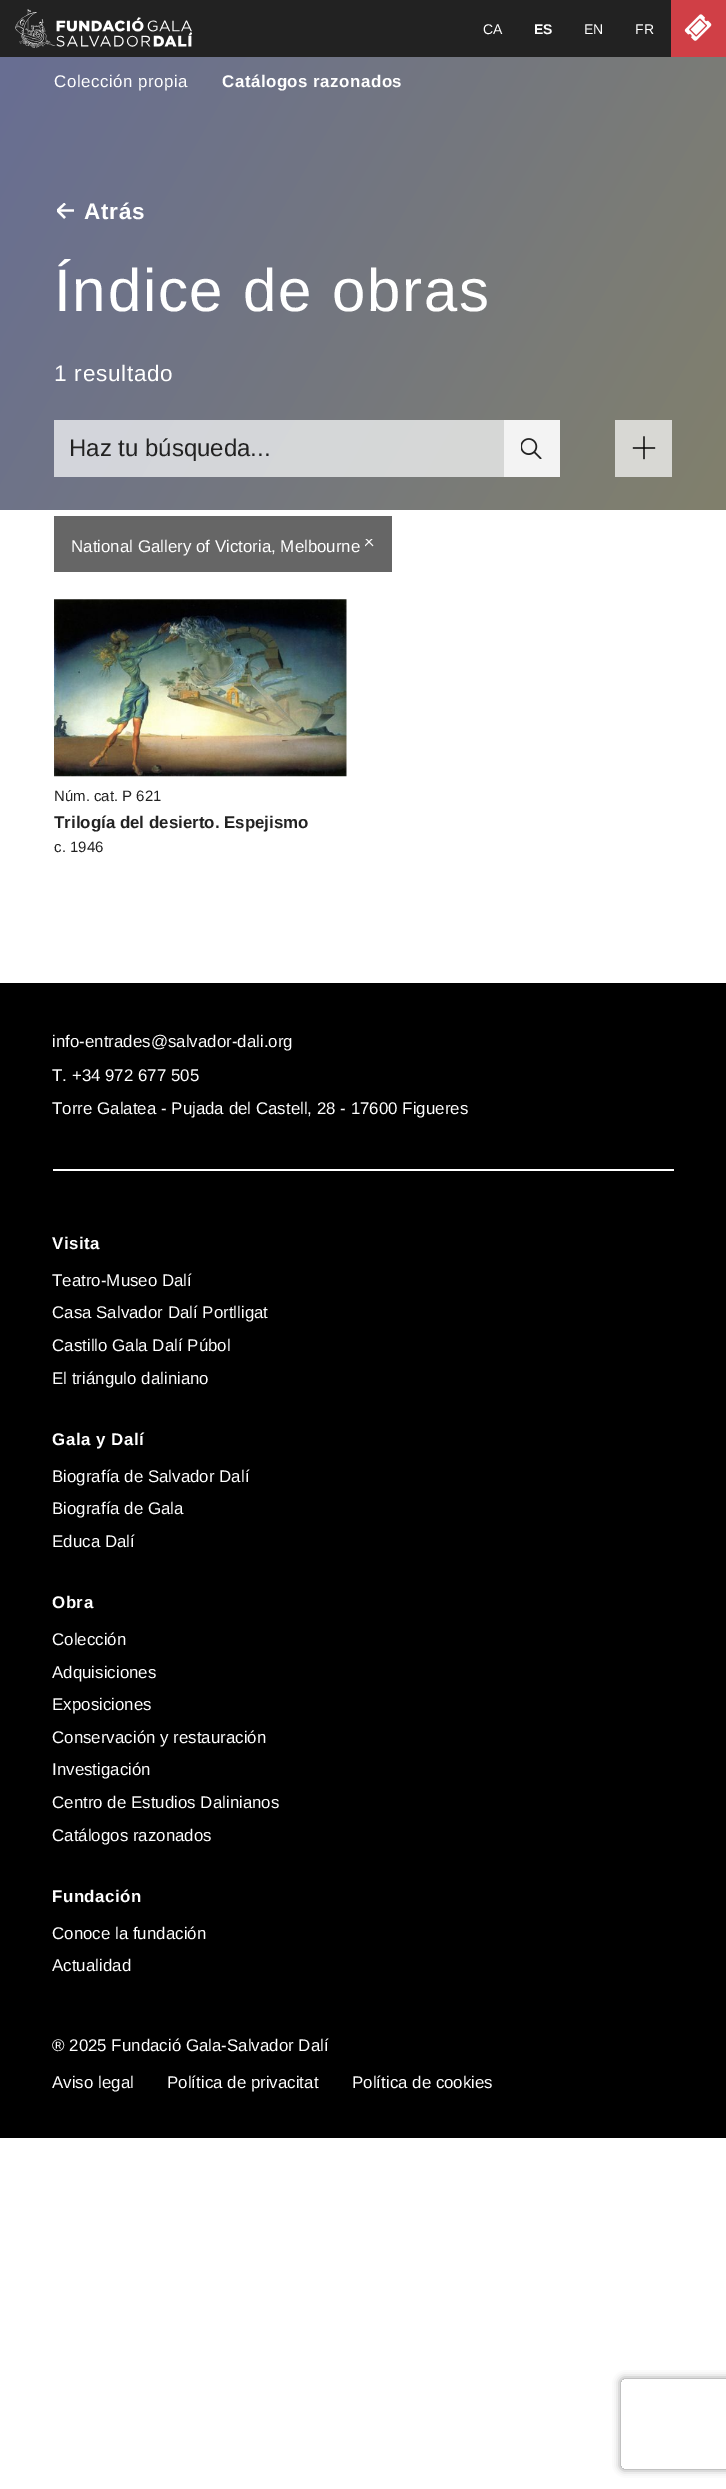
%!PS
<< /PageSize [726 2489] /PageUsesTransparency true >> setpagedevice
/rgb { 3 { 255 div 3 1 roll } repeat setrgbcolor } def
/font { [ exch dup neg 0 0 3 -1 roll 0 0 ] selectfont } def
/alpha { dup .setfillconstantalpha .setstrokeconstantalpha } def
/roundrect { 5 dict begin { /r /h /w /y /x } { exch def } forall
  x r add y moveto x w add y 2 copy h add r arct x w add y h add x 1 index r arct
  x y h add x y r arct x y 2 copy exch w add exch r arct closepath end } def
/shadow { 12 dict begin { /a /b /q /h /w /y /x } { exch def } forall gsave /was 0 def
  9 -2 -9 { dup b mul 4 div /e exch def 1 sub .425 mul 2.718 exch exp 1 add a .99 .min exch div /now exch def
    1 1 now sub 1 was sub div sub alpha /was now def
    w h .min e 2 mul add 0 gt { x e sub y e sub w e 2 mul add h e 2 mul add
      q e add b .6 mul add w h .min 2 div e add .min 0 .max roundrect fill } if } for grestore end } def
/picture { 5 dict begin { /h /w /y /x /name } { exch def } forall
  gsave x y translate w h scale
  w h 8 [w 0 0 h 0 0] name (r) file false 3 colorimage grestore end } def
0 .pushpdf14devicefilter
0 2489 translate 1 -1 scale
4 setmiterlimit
255 255 255 rgb
0 0 726 2489 rectfill
gsave 0 57 moveto 726 57 lineto 726 510 lineto 0 510 lineto closepath clip newpath
<< /ShadingType 2 /ColorSpace /DeviceRGB /Coords [-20 34 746 476] /Extend [true true] /Function << /FunctionType 2 /Domain [0 1] /C0 [0.404 0.431 0.58] /C1 [0.506 0.502 0.424] /N 1 >> >> shfill grestore
gsave 54 420 moveto 504 420 lineto 504 477 lineto 54 477 lineto closepath clip newpath
<< /ShadingType 2 /ColorSpace /DeviceRGB /Coords [-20 34 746 476] /Extend [true true] /Function << /FunctionType 2 /Domain [0 1] /C0 [0.82 0.831 0.875] /C1 [0.851 0.851 0.827] /N 1 >> >> shfill grestore
gsave 615 420 moveto 672 420 lineto 672 477 lineto 615 477 lineto closepath clip newpath
<< /ShadingType 2 /ColorSpace /DeviceRGB /Coords [-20 34 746 476] /Extend [true true] /Function << /FunctionType 2 /Domain [0 1] /C0 [0.82 0.831 0.875] /C1 [0.851 0.851 0.827] /N 1 >> >> shfill grestore
34 34 34 rgb
0 0 671 57 rectfill
(img/1.rgb) 15 9 177 39 picture
208 63 70 rgb
671 0 55 57 rectfill
(img/2.rgb) 684 14 28 27 picture
255 255 255 rgb
2.2 setlinewidth
1 setlinejoin
74 210.5 moveto 58 210.5 lineto stroke
gsave
57 203 18 16 rectclip
0 setlinejoin
65 218 moveto 57.5 210.5 lineto 65 203.5 lineto stroke
grestore
243 243 243 rgb
504 420 56 57 rectfill
(img/3.rgb) 521 438 21 21 picture
0 0 0 rgb
1.3 setlinewidth
1 setlinecap
644 458.5 moveto 644 437 lineto 654.5 448 moveto 633.5 448 lineto stroke
102 102 102 rgb
54 516 338 56 rectfill
(img/4.rgb) 365 539 9 8 picture
(img/5.rgb) 54 599 293 178 picture
0 0 0 rgb
0 983 726 1155 rectfill
255 255 255 rgb
53 1169 621 2 rectfill
gsave
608 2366 moveto 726 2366 lineto 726 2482 lineto 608 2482 lineto closepath 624 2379 moveto 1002 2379 lineto 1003.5 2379 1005 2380.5 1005 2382 curveto 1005 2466 lineto 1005 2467.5 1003.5 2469 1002 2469 curveto 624 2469 lineto 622.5 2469 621 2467.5 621 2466 curveto 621 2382 lineto 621 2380.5 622.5 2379 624 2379 curveto closepath eoclip newpath
128 128 128 rgb
621 2379 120 90 3 4 1 shadow
grestore
/LiberationSans-Regular 14 font
483 34 moveto (CA) show
/LiberationSans-Bold 14 font
534 34 moveto (ES) show
/LiberationSans-Regular 14 font
584 34 moveto (EN) show
635 34 moveto (FR) show
/LiberationSans-Regular 16.9 font
54 87 moveto 0.5 0 (Colección propia) ashow
/LiberationSans-Bold 16.9 font
222 87 moveto 0.5 0 (Catálogos razonados) ashow
/LiberationSans-Bold 22.5 font
84 219 moveto 0.75 0 (Atrás) ashow
/LiberationSans-Regular 60 font
54 311 moveto 1.75 0 (Índice de obras) ashow
/LiberationSans-Regular 22.5 font
54 381 moveto 0.75 0 (1 resultado) ashow
/LiberationSans-Regular 24 font
34 34 34 rgb
69 456 moveto (Haz tu búsqueda...) show
/LiberationSans-Regular 16.9 font
255 255 255 rgb
71 552 moveto (National Gallery of Victoria, Melbourne) show
/LiberationSans-Regular 15 font
34 34 34 rgb
54 801 moveto (Núm. cat. P 621) show
/LiberationSans-Bold 16.9 font
54 828 moveto (Trilogía del desierto. Espejismo) show
/LiberationSans-Regular 15 font
54 852 moveto (c. 1946) show
/LiberationSans-Regular 16.9 font
255 255 255 rgb
[
  [(info-entrades@salvador-dali.org) 52 1047]
  [(T. +34 972 677 505) 52 1081]
  [(Torre Galatea - Pujada del Castell, 28 - 17600 Figueres) 52 1114]
] { aload pop moveto show } forall
/LiberationSans-Bold 16.9 font
52 1249 moveto 0.5 0 (Visita) ashow
/LiberationSans-Regular 16.9 font
[
  [(Teatro-Museo Dalí) 52 1286]
  [(Casa Salvador Dalí Portlligat) 52 1318]
  [(Castillo Gala Dalí Púbol) 52 1351]
  [(El triángulo daliniano) 52 1384]
] { aload pop moveto show } forall
/LiberationSans-Bold 16.9 font
52 1445 moveto 0.5 0 (Gala y Dalí) ashow
/LiberationSans-Regular 16.9 font
[
  [(Biografía de Salvador Dalí) 52 1482]
  [(Biografía de Gala) 52 1514]
  [(Educa Dalí) 52 1547]
] { aload pop moveto show } forall
/LiberationSans-Bold 16.9 font
52 1608 moveto 0.5 0 (Obra) ashow
/LiberationSans-Regular 16.9 font
[
  [(Colección) 52 1645]
  [(Adquisiciones) 52 1678]
  [(Exposiciones) 52 1710]
  [(Conservación y restauración) 52 1743]
  [(Investigación) 52 1775]
  [(Centro de Estudios Dalinianos) 52 1808]
  [(Catálogos razonados) 52 1841]
] { aload pop moveto show } forall
/LiberationSans-Bold 16.9 font
52 1902 moveto 0.5 0 (Fundación) ashow
/LiberationSans-Regular 16.9 font
[
  [(Conoce la fundación) 52 1939]
  [(Actualidad) 52 1971]
  [(® 2025 Fundació Gala-Salvador Dalí) 52 2051]
  [(Aviso legal) 52 2088]
  [(Política de privacitat) 167 2088]
  [(Política de cookies) 352 2088]
] { aload pop moveto show } forall
.poppdf14devicefilter showpage
